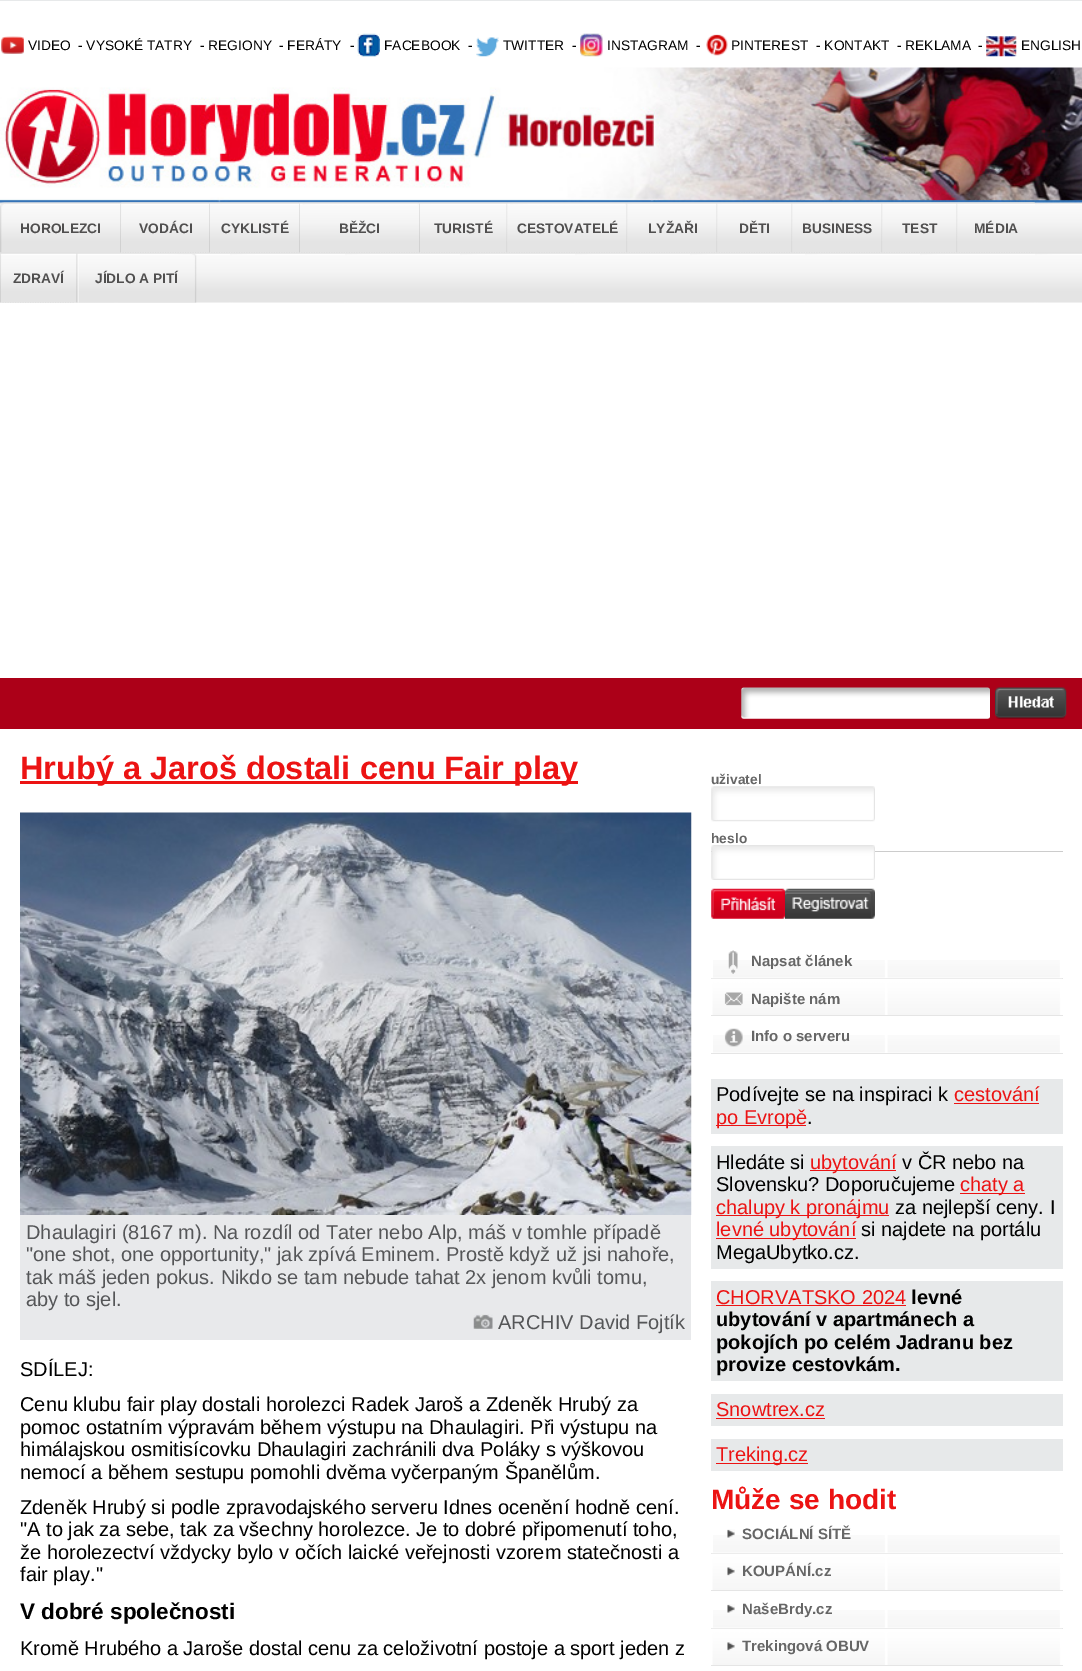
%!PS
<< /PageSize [1082 1671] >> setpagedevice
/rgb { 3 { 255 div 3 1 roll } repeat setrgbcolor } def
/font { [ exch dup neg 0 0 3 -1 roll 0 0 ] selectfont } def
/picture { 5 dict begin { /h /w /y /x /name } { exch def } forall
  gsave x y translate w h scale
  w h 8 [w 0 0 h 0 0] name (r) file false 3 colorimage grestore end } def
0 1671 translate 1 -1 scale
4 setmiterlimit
231 233 234 rgb
0 0 1082 1671 rectfill
255 255 255 rgb
0 1 1082 1670 rectfill
(img/1.rgb) 1 36 23 18 picture
(img/2.rgb) 357 33 23 24 picture
(img/3.rgb) 476 37 23 20 picture
(img/4.rgb) 580 33 23 24 picture
(img/5.rgb) 706 34 22 22 picture
(img/6.rgb) 986 36 31 21 picture
(img/8.rgb) 0 202 1082 101 picture
(img/7.rgb) 0 67 1082 136 picture
(img/9.rgb) 0 202 120 51 picture
(img/10.rgb) 120 202 89 51 picture
(img/11.rgb) 121 202 89 51 picture
(img/12.rgb) 209 202 90 51 picture
(img/13.rgb) 210 202 90 51 picture
(img/14.rgb) 299 202 120 51 picture
(img/15.rgb) 300 202 120 51 picture
(img/16.rgb) 419 202 88 51 picture
(img/17.rgb) 420 202 88 51 picture
(img/18.rgb) 506 202 121 51 picture
(img/19.rgb) 507 202 121 51 picture
(img/20.rgb) 626 202 91 51 picture
(img/21.rgb) 627 202 91 51 picture
(img/22.rgb) 716 202 76 51 picture
(img/23.rgb) 717 202 76 51 picture
(img/24.rgb) 791 202 91 51 picture
(img/25.rgb) 792 202 91 51 picture
(img/26.rgb) 881 202 76 51 picture
(img/27.rgb) 882 202 76 51 picture
(img/28.rgb) 956 202 78 51 picture
(img/29.rgb) 957 202 78 51 picture
(img/30.rgb) 0 252 75 51 picture
(img/31.rgb) 1 253 75 50 picture
(img/32.rgb) 76 253 121 50 picture
172 0 24 rgb
0 678 1082 51 rectfill
(img/33.rgb) 741 687 249 32 picture
(img/34.rgb) 995 687 72 32 picture
236 19 19 rgb
20 781 558 3 rectfill
(img/35.rgb) 20 812 672 403 picture
232 233 235 rgb
20 1215 671 125 rectfill
(img/36.rgb) 473 1314 20 15 picture
(img/37.rgb) 711 786 164 36 picture
204 204 204 rgb
711 851 352 1 rectfill
(img/38.rgb) 711 845 164 35 picture
(img/39.rgb) 711 888 74 31 picture
(img/40.rgb) 785 888 90 31 picture
(img/41.rgb) 713 960 347 18 picture
229 229 229 rgb
711 978 352 1 rectfill
(img/42.rgb) 728 950 10 24 picture
(img/43.rgb) 711 978 351 37 picture
711 1015 352 1 rectfill
(img/44.rgb) 724 992 19 14 picture
(img/41.rgb) 713 1035 347 18 picture
711 1053 352 1 rectfill
(img/45.rgb) 724 1028 19 19 picture
[
  [711 1079 352 55 231 233 234]
  [954 1103 85 1 236 19 19]
  [716 1125 90 1 236 19 19]
  [711 1146 352 123 231 233 234]
  [810 1170 86 1 236 19 19]
  [960 1193 65 1 236 19 19]
  [716 1215 173 1 236 19 19]
  [716 1238 140 1 236 19 19]
  [711 1281 352 100 231 233 234]
  [716 1305 190 1 236 19 19]
  [711 1394 352 32 231 233 234]
  [716 1418 109 1 236 19 19]
  [711 1439 352 32 231 233 234]
  [716 1463 92 1 236 19 19]
] { aload pop rgb rectfill } forall
(img/41.rgb) 713 1535 347 18 picture
229 229 229 rgb
711 1553 352 1 rectfill
(img/46.rgb) 727 1529 8 9 picture
(img/47.rgb) 711 1553 351 37 picture
711 1590 352 1 rectfill
(img/48.rgb) 727 1567 8 9 picture
(img/41.rgb) 713 1610 347 18 picture
711 1628 352 1 rectfill
(img/46.rgb) 727 1604 8 9 picture
(img/49.rgb) 711 1628 351 37 picture
711 1665 352 1 rectfill
(img/48.rgb) 727 1642 8 9 picture
/LiberationSans-Regular 13.75 font
0 0 0 rgb
[
  [(VIDEO) 28 50]
  [(- VYSOKÉ TATRY) 78 50]
  [(- REGIONY) 200 50]
  [(- FERÁTY) 279 50]
  [(-) 350 50]
  [(FACEBOOK) 384 50]
  [(-) 468 50]
  [(TWITTER) 503 50]
  [(-) 572 50]
  [(INSTAGRAM) 607 50]
  [(-) 696 50]
  [(PINTEREST) 731 50]
  [(- KONTAKT) 816 50]
  [(- REKLAMA) 897 50]
  [(-) 978 50]
  [(ENGLISH) 1021 50]
] { aload pop moveto show } forall
/LiberationSans-Bold 13.75 font
80 79 79 rgb
[
  [(HOROLEZCI) 20 233]
  [(VODÁCI) 139 233]
  [(CYKLISTÉ) 221 233]
  [(BĚŽCI) 339 233]
  [(TURISTÉ) 434 233]
  [(CESTOVATELÉ) 517 233]
  [(LYŽAŘI) 648 233]
  [(DĚTI) 739 233]
  [(BUSINESS) 802 233]
  [(TEST) 902 233]
  [(MÉDIA) 974 233]
  [(ZDRAVÍ) 13 283]
  [(JÍDLO A PITÍ) 95 283]
] { aload pop moveto show } forall
/LiberationSans-Bold 32.5 font
236 19 19 rgb
20 779 moveto (Hrubý a Jaroš dostali cenu Fair play) show
/LiberationSans-Regular 20 font
85 86 88 rgb
[
  [(Dhaulagiri \(8167 m\). Na rozdíl od Tater nebo Alp, máš v tomhle případě) 26 1239]
  [("one shot, one opportunity," jak zpívá Eminem. Prostě když už jsi nahoře,) 26 1261]
  [(tak máš jeden pokus. Nikdo se tam nebude tahat 2x jenom kvůli tomu,) 26 1284]
  [(aby to sjel.) 26 1306]
  [(ARCHIV David Fojtík) 498 1329]
] { aload pop moveto show } forall
0 0 0 rgb
[
  [(SDÍLEJ:) 20 1376]
  [(Cenu klubu fair play dostali horolezci Radek Jaroš a Zdeněk Hrubý za) 20 1411]
  [(pomoc ostatním výpravám během výstupu na Dhaulagiri. Při výstupu na) 20 1434]
  [(himálajskou osmitisícovku Dhaulagiri zachránili dva Poláky s výškovou) 20 1456]
  [(nemocí a během sestupu pomohli dvěma vyčerpaným Španělům.) 20 1479]
  [(Zdeněk Hrubý si podle zpravodajského serveru Idnes ocenění hodně cení.) 20 1514]
  [("A to jak za sebe, tak za všechny horolezce. Je to dobré připomenutí toho,) 20 1536]
  [(že horolezectví vždycky bylo v očích laické veřejnosti vzorem statečnosti a) 20 1559]
  [(fair play.") 20 1581]
] { aload pop moveto show } forall
/LiberationSans-Bold 22.5 font
20 1619 moveto (V dobré společnosti) show
/LiberationSans-Regular 20 font
20 1655 moveto (Kromě Hrubého a Jaroše dostal cenu za celoživotní postoje a sport jeden z) show
/LiberationSans-Bold 13.75 font
102 102 102 rgb
711 784 moveto (uživatel) show
711 843 moveto (heslo) show
/LiberationSans-Bold 15 font
[
  [(Napsat článek) 751 966]
  [(Napište nám) 751 1004]
  [(Info o serveru) 751 1041]
] { aload pop moveto show } forall
/LiberationSans-Regular 20 font
0 0 0 rgb
716 1101 moveto (Podívejte se na inspiraci k) show
236 19 19 rgb
954 1101 moveto (cestování) show
716 1124 moveto (po Evropě) show
0 0 0 rgb
807 1124 moveto (.) show
716 1169 moveto (Hledáte si) show
236 19 19 rgb
810 1169 moveto (ubytování) show
0 0 0 rgb
902 1169 moveto (v ČR nebo na) show
716 1191 moveto (Slovensku? Doporučujeme) show
236 19 19 rgb
960 1191 moveto (chaty a) show
716 1214 moveto (chalupy k pronájmu) show
0 0 0 rgb
895 1214 moveto (za nejlepší ceny. I) show
236 19 19 rgb
716 1236 moveto (levné ubytování) show
0 0 0 rgb
861 1236 moveto (si najdete na portálu) show
716 1259 moveto (MegaUbytko.cz.) show
236 19 19 rgb
716 1304 moveto (CHORVATSKO 2024) show
/LiberationSans-Bold 20 font
0 0 0 rgb
[
  [(levné) 911 1304]
  [(ubytování v apartmánech a) 716 1326]
  [(pokojích po celém Jadranu bez) 716 1349]
  [(provize cestovkám.) 716 1371]
] { aload pop moveto show } forall
/LiberationSans-Regular 20 font
236 19 19 rgb
716 1416 moveto (Snowtrex.cz) show
716 1461 moveto (Treking.cz) show
/LiberationSans-Bold 28 font
711 1509 moveto (Může se hodit) show
/LiberationSans-Bold 15 font
102 102 102 rgb
[
  [(SOCIÁLNÍ SÍTĚ) 742 1539]
  [(KOUPÁNÍ.cz) 742 1576]
  [(NašeBrdy.cz) 742 1614]
  [(Trekingová OBUV) 742 1651]
] { aload pop moveto show } forall
showpage
